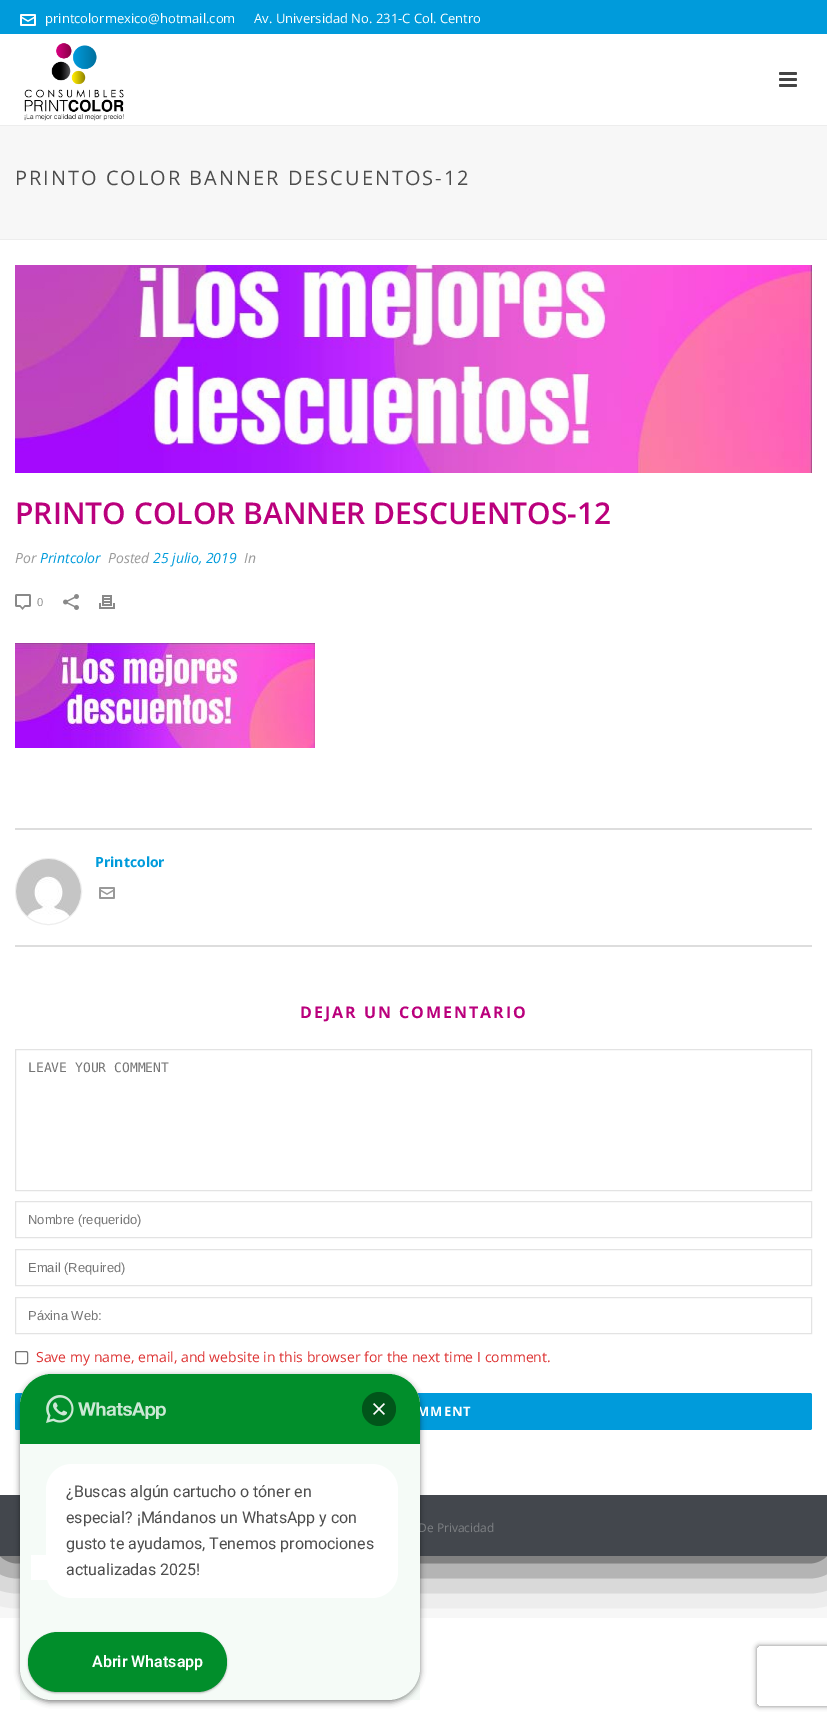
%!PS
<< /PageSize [827 1720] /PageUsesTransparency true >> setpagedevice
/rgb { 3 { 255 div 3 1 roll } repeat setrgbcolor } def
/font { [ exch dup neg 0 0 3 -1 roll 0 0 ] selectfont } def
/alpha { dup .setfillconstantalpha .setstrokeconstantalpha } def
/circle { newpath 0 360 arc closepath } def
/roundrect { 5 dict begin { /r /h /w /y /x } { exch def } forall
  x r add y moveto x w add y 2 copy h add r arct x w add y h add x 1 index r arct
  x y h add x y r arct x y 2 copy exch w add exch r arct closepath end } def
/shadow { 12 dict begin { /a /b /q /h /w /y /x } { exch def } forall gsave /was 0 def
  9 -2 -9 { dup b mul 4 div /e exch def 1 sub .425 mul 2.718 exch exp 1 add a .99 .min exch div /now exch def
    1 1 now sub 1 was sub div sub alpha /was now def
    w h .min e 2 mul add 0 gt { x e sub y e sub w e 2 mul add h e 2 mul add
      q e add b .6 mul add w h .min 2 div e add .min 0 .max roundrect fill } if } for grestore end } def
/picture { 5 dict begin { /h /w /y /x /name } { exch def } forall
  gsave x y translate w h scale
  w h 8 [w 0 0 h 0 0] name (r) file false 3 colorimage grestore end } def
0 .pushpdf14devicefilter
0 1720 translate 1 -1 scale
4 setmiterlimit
255 255 255 rgb
0 0 827 1720 rectfill
gsave
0 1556 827 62 rectclip
0 0 0 rgb
0 0 827 1556 0 30 1 shadow
grestore
[
  [0 126 827 113 247 247 247]
  [0 239 827 1 237 237 237]
  [0 0 827 34 0 155 219]
] { aload pop rgb rectfill } forall
(img/1.rgb) 20 14 16 12 picture
237 237 237 rgb
0 125 827 1 rectfill
(img/2.rgb) 24 43 100 78 picture
68 68 68 rgb
779 72 18 3 1.5 roundrect fill
779 78 18 3 1.5 roundrect fill
779 84 18 3 1.5 roundrect fill
(img/3.rgb) 15 265 797 208 picture
(img/4.rgb) 15 594 16 16 picture
(img/5.rgb) 63 594 16 16 picture
(img/6.rgb) 99 595 16 14 picture
(img/7.rgb) 15 643 300 105 picture
221 221 221 rgb
15 828 797 2 rectfill
15 945 797 2 rectfill
238 238 238 rgb
48.5 891.5 33 circle stroke
(img/8.rgb) 16 859 65 57 picture
(img/9.rgb) 99 887 16 12 picture
227 227 227 rgb
15.5 1049.5 796 141 rectstroke
15.5 1201.5 796 36 rectstroke
15.5 1249.5 796 36 rectstroke
15.5 1297.5 796 36 rectstroke
118 118 118 rgb
15.5 1351.5 12 12 1.5 roundrect stroke
0 155 219 rgb
15 1393 797 37 2 roundrect fill
67 71 77 rgb
0 1495 827 61 rectfill
0 0 0 rgb
20 1376 400 326 32 3 0.5 shadow
gsave
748 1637 moveto 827 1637 lineto 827 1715 lineto 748 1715 lineto closepath 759 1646 moveto 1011 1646 lineto 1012 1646 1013 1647 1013 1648 curveto 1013 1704 lineto 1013 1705 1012 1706 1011 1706 curveto 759 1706 lineto 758 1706 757 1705 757 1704 curveto 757 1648 lineto 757 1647 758 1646 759 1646 curveto closepath eoclip newpath
128 128 128 rgb
757 1646 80 60 2 2.5 1 shadow
grestore
/OpenSans-Regular 13 font
255 255 255 rgb
45 23 moveto (printcolormexico@hotmail.com) show
254 23 moveto (Av. Universidad No. 231-C Col. Centro) show
/OpenSans-Regular 20 font
77 77 77 rgb
15 185 moveto 2 0 (PRINTO COLOR BANNER DESCUENTOS-12) ashow
/OpenSans-SemiBold 30 font
186 0 124 rgb
15 524 moveto (PRINTO COLOR BANNER DESCUENTOS-12) show
/OpenSans-Italic 14 font
153 153 153 rgb
15 563 moveto (Por) show
0 155 219 rgb
40 563 moveto (Printcolor) show
153 153 153 rgb
108 563 moveto (Posted) show
0 155 219 rgb
153 563 moveto (25 julio, 2019) show
153 153 153 rgb
244 563 moveto (In) show
/OpenSans-Regular 11 font
137 137 137 rgb
37 606 moveto (0) show
/OpenSans-Bold 14 font
0 155 219 rgb
95 867 moveto (Printcolor) show
/OpenSans-Bold 16 font
186 0 124 rgb
300 1018 moveto 2 0 (DEJAR UN COMENTARIO) ashow
/DejaVuSansMono-Regular 13 font
117 117 117 rgb
28 1072 moveto (LEAVE YOUR COMMENT) show
/LiberationSans-Regular 13 font
[
  [(Nombre \(requerido\)) 28 1224]
  [(Email \(Required\)) 28 1272]
  [(Páxina Web:) 28 1320]
] { aload pop moveto show } forall
/OpenSans-Regular 14 font
221 51 51 rgb
36 1362 moveto (Save my name, email, and website in this browser for the next time I comment.) show
/OpenSans-Bold 13 font
255 255 255 rgb
417 1416 moveto 1 0 (MMENT) ashow
/OpenSans-Regular 12 font
125 128 131 rgb
418 1532 moveto (De Privacidad) show
255 255 255 rgb
20 1374 400 326 32 roundrect fill
1 142 43 rgb
52 1374 moveto 388 1374 lineto 405.5 1374 420 1388.5 420 1406 curveto 420 1444 lineto 20 1444 lineto 20 1406 lineto 20 1388.5 34.5 1374 52 1374 curveto closepath fill
0.04 alpha
20 1444 400 256 rectfill
1 alpha
(img/10.rgb) 46 1395 120 28 picture
1 85 26 rgb
379 1409 17 circle fill
(img/11.rgb) 373 1403 12 12 picture
255 255 255 rgb
46 1464 352 134 26 roundrect fill
/Roboto-Regular 16 font
77 77 77 rgb
[
  [(¿Buscas algún cartucho o tóner en) 66 1497]
  [(especial? ¡Mándanos un WhatsApp y con) 66 1523]
  [(gusto te ayudamos, Tenemos promociones) 66 1549]
] { aload pop moveto show } forall
255 255 255 rgb
31 1555 16 25 rectfill
77 77 77 rgb
66 1575 moveto (actualizadas 2025!) show
0 0 0 rgb
28 1633 199 60 30 1 0.3 shadow
1 142 43 rgb
28 1632 199 60 30 roundrect fill
/Roboto-SemiBold 16 font
255 255 255 rgb
92 1667 moveto (Abrir Whatsapp) show
.poppdf14devicefilter showpage
